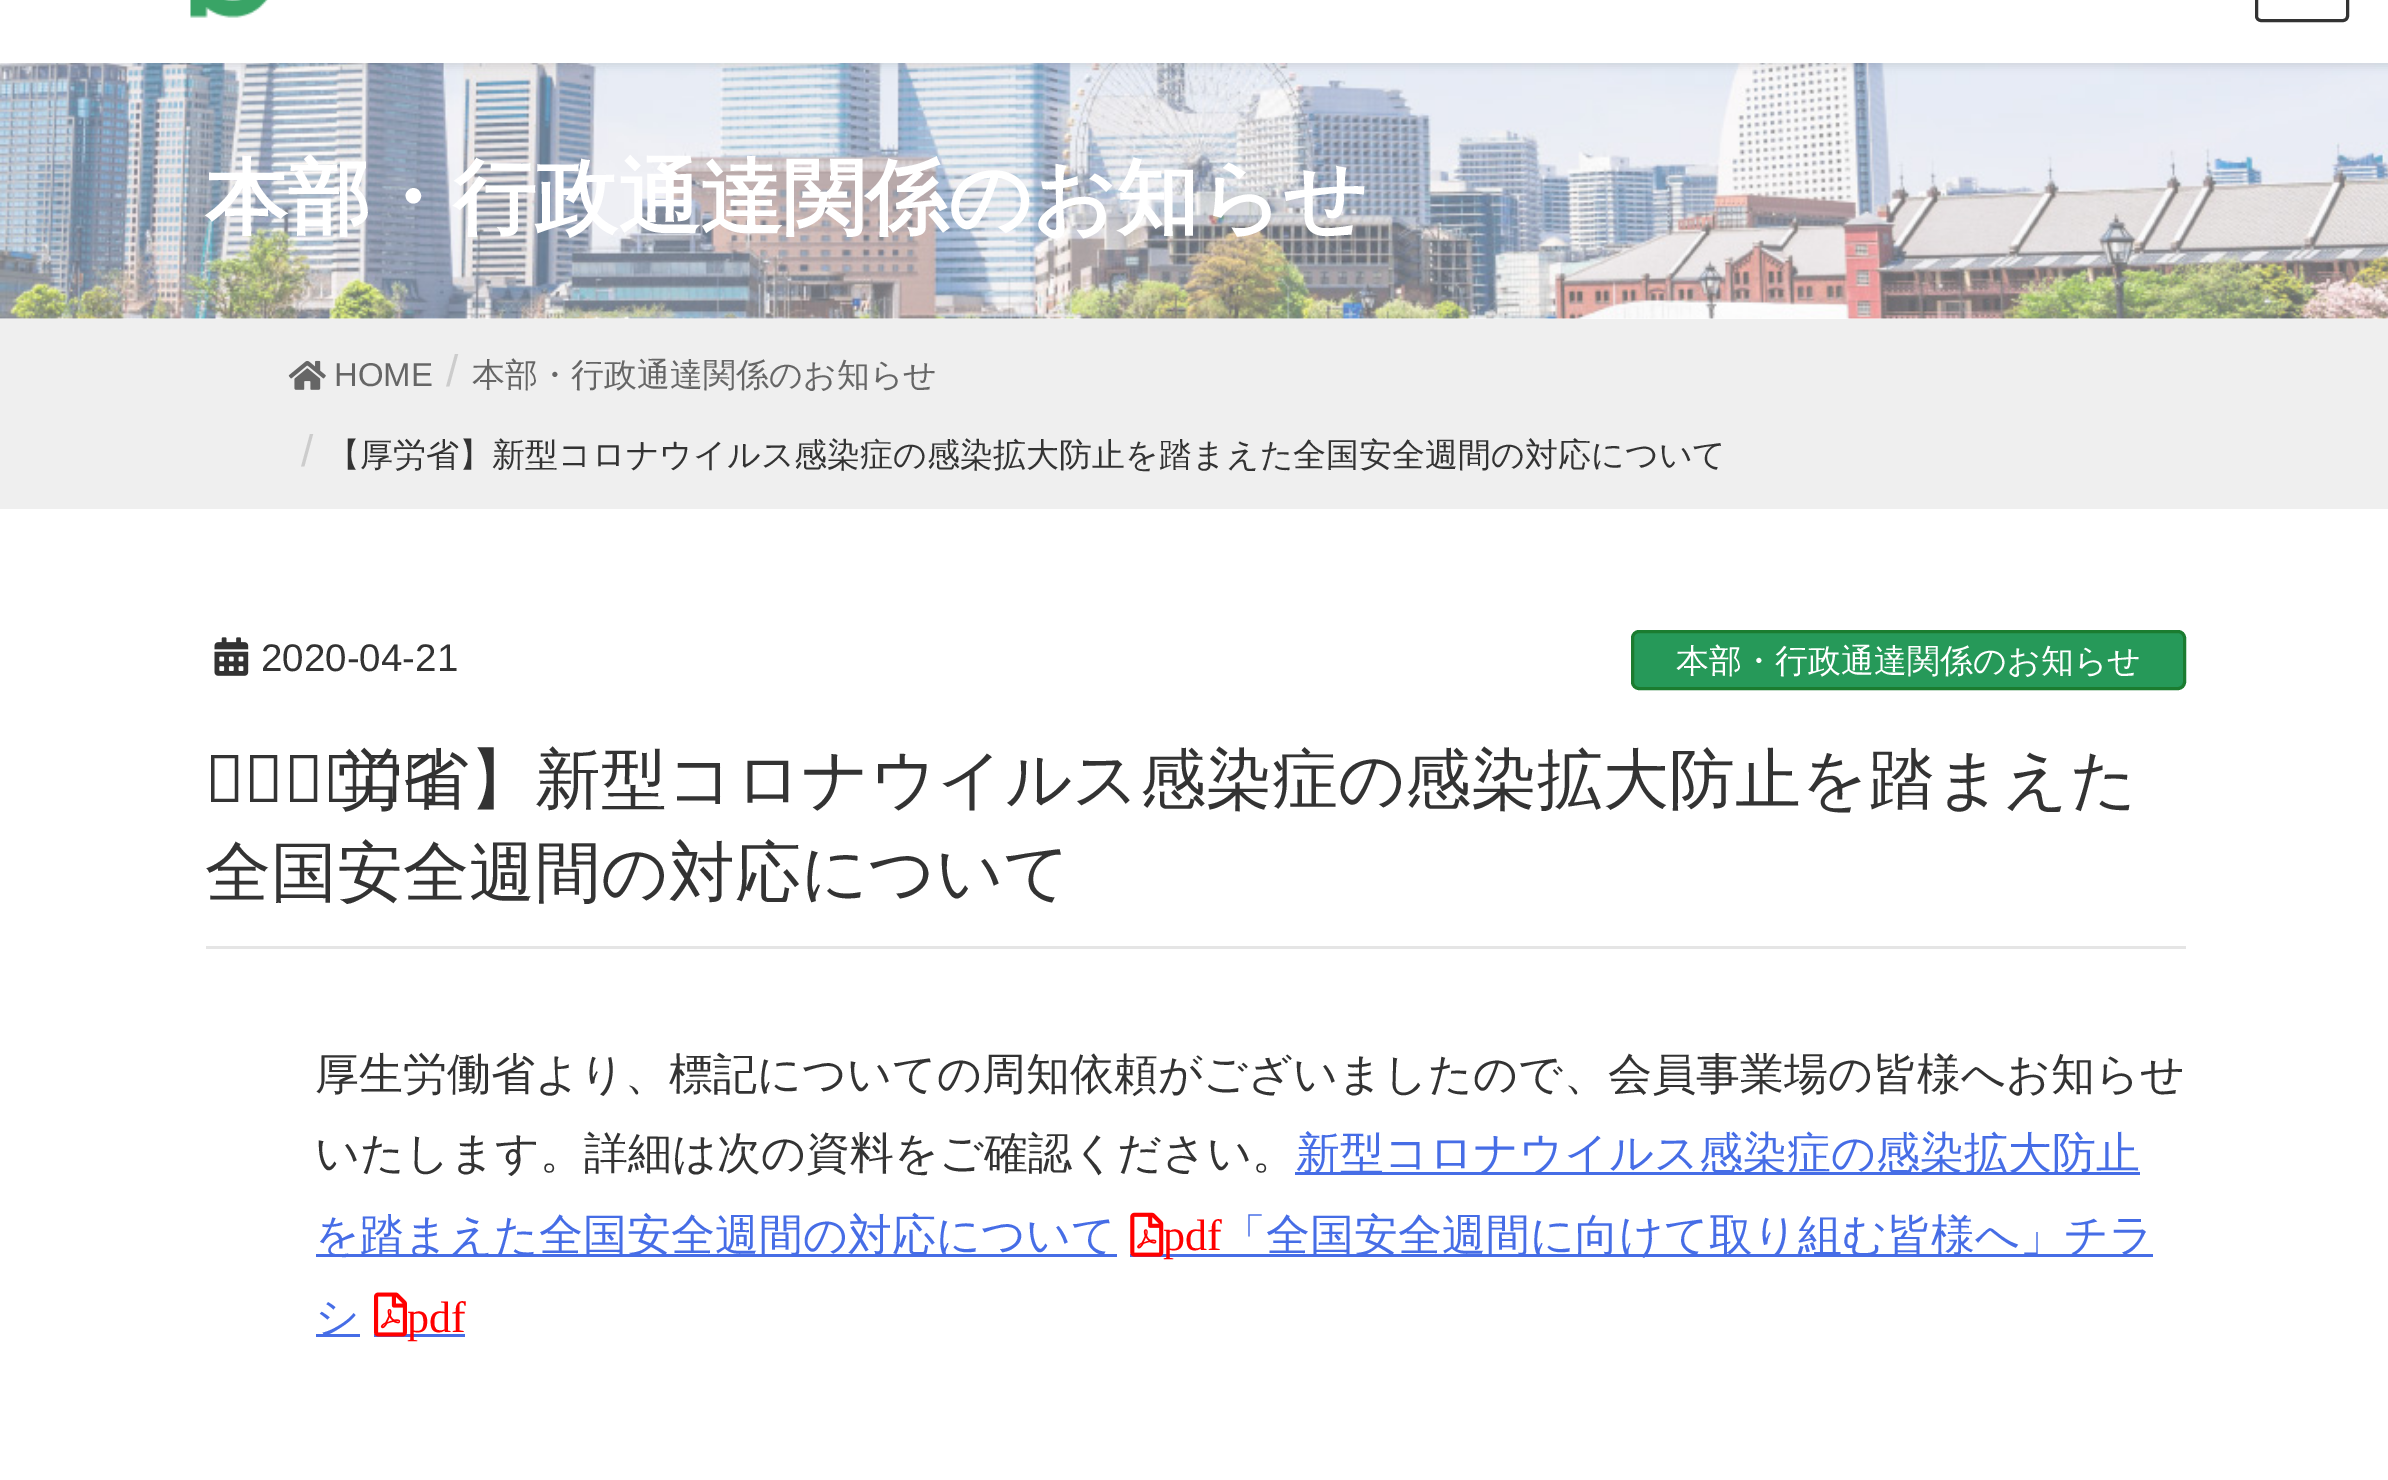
%!PS
<< /PageSize [2388 1480] /PageUsesTransparency true >> setpagedevice
/rgb { 3 { 255 div 3 1 roll } repeat setrgbcolor } def
/font { [ exch dup neg 0 0 3 -1 roll 0 0 ] selectfont } def
/alpha { dup .setfillconstantalpha .setstrokeconstantalpha } def
/roundrect { 5 dict begin { /r /h /w /y /x } { exch def } forall
  x r add y moveto x w add y 2 copy h add r arct x w add y h add x 1 index r arct
  x y h add x y r arct x y 2 copy exch w add exch r arct closepath end } def
/shadow { 12 dict begin { /a /b /q /h /w /y /x } { exch def } forall gsave /was 0 def
  9 -2 -9 { dup b mul 4 div /e exch def 1 sub .425 mul 2.718 exch exp 1 add a .99 .min exch div /now exch def
    1 1 now sub 1 was sub div sub alpha /was now def
    w h .min e 2 mul add 0 gt { x e sub y e sub w e 2 mul add h e 2 mul add
      q e add b .6 mul add w h .min 2 div e add .min 0 .max roundrect fill } if } for grestore end } def
/picture { 5 dict begin { /h /w /y /x /name } { exch def } forall
  gsave x y translate w h scale
  w h 8 [w 0 0 h 0 0] name (r) file false 3 colorimage grestore end } def
0 .pushpdf14devicefilter
0 1480 translate 1 -1 scale
4 setmiterlimit
255 255 255 rgb
0 0 2388 1480 rectfill
(img/2.rgb) 0 63 2388 256 picture
0 0 0 rgb
0 -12 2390 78 0 4 0.1 shadow
255 255 255 rgb
0 0 2388 63 rectfill
51 51 51 rgb
3 setlinewidth
2256.5 -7.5 91 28 4.5 roundrect stroke
(img/1.rgb) 190 0 78 18 picture
239 239 239 rgb
0 319 2388 190 rectfill
(img/3.rgb) 288 360 38 30 picture
229 229 229 rgb
206 946 1980 3 rectfill
(img/4.rgb) 214 637 35 39 picture
38 153 89 rgb
1632.5 631.5 552 57 6.5 roundrect gsave fill grestore
27 124 48 rgb
stroke
[
  [1295 1172 845 3 70 109 230]
  [316 1254 801 3 70 109 230]
  [1130 1254 91 3 70 109 230]
] { aload pop rgb rectfill } forall
(img/5.rgb) 1130 1212 34 45 picture
316 1334 44 3 rectfill
374 1334 91 3 rectfill
(img/6.rgb) 374 1292 33 45 picture
/WenQuanYiZenHei-Bold 82.5 font
255 255 255 rgb
205 226 moveto (本部・行政通達関係のお知らせ) show
/LiberationSans-Regular 33 font
102 102 102 rgb
334 386 moveto (HOME) show
/LiberationSans-Regular 44 font
204 204 204 rgb
446 386 moveto (/) show
/WenQuanYiZenHei-Medium 33 font
102 102 102 rgb
472 386 moveto (本部・行政通達関係のお知らせ) show
/LiberationSans-Regular 44 font
204 204 204 rgb
301 466 moveto (/) show
/WenQuanYiZenHei-Medium 33 font
51 51 51 rgb
327 466 moveto (【厚労省】新型コロナウイルス感染症の感染拡大防止を踏まえた全国安全週間の対応について) show
/LiberationSans-Regular 38.5 font
261 671 moveto (2020-04-21) show
/WenQuanYiZenHei-Medium 33 font
255 255 255 rgb
1676 672 moveto (本部・行政通達関係のお知らせ) show
/NotoSans-Medium 66 font
51 51 51 rgb
205 802 moveto (【厚) show
/WenQuanYiZenHei-Medium 66 font
337 802 moveto (労省】新型コロナウイルス感染症の感染拡大防止を踏まえた) show
205 895 moveto (全国安全週間の対応について) show
/WenQuanYiZenHei-Medium 44 font
315 1089 moveto (厚生労働省より、標記についての周知依頼がございましたので、会員事業場の皆様へお知らせ) show
315 1168 moveto (いたします。詳細は次の資料をご確認ください。) show
70 109 230 rgb
1296 1168 moveto (新型コロナウイルス感染症の感染拡大防止) show
315 1250 moveto (を踏まえた全国安全週間の対応について) show
/LiberationSerif-Regular 44 font
255 0 0 rgb
1163 1250 moveto (pdf) show
70 109 230 rgb
1221 1254 932 3 rectfill
/WenQuanYiZenHei-Medium 44 font
1222 1250 moveto (「全国安全週間に向けて取り組む皆様へ」チラ) show
315 1332 moveto (シ) show
/LiberationSerif-Regular 44 font
255 0 0 rgb
407 1332 moveto (pdf) show
.poppdf14devicefilter showpage
